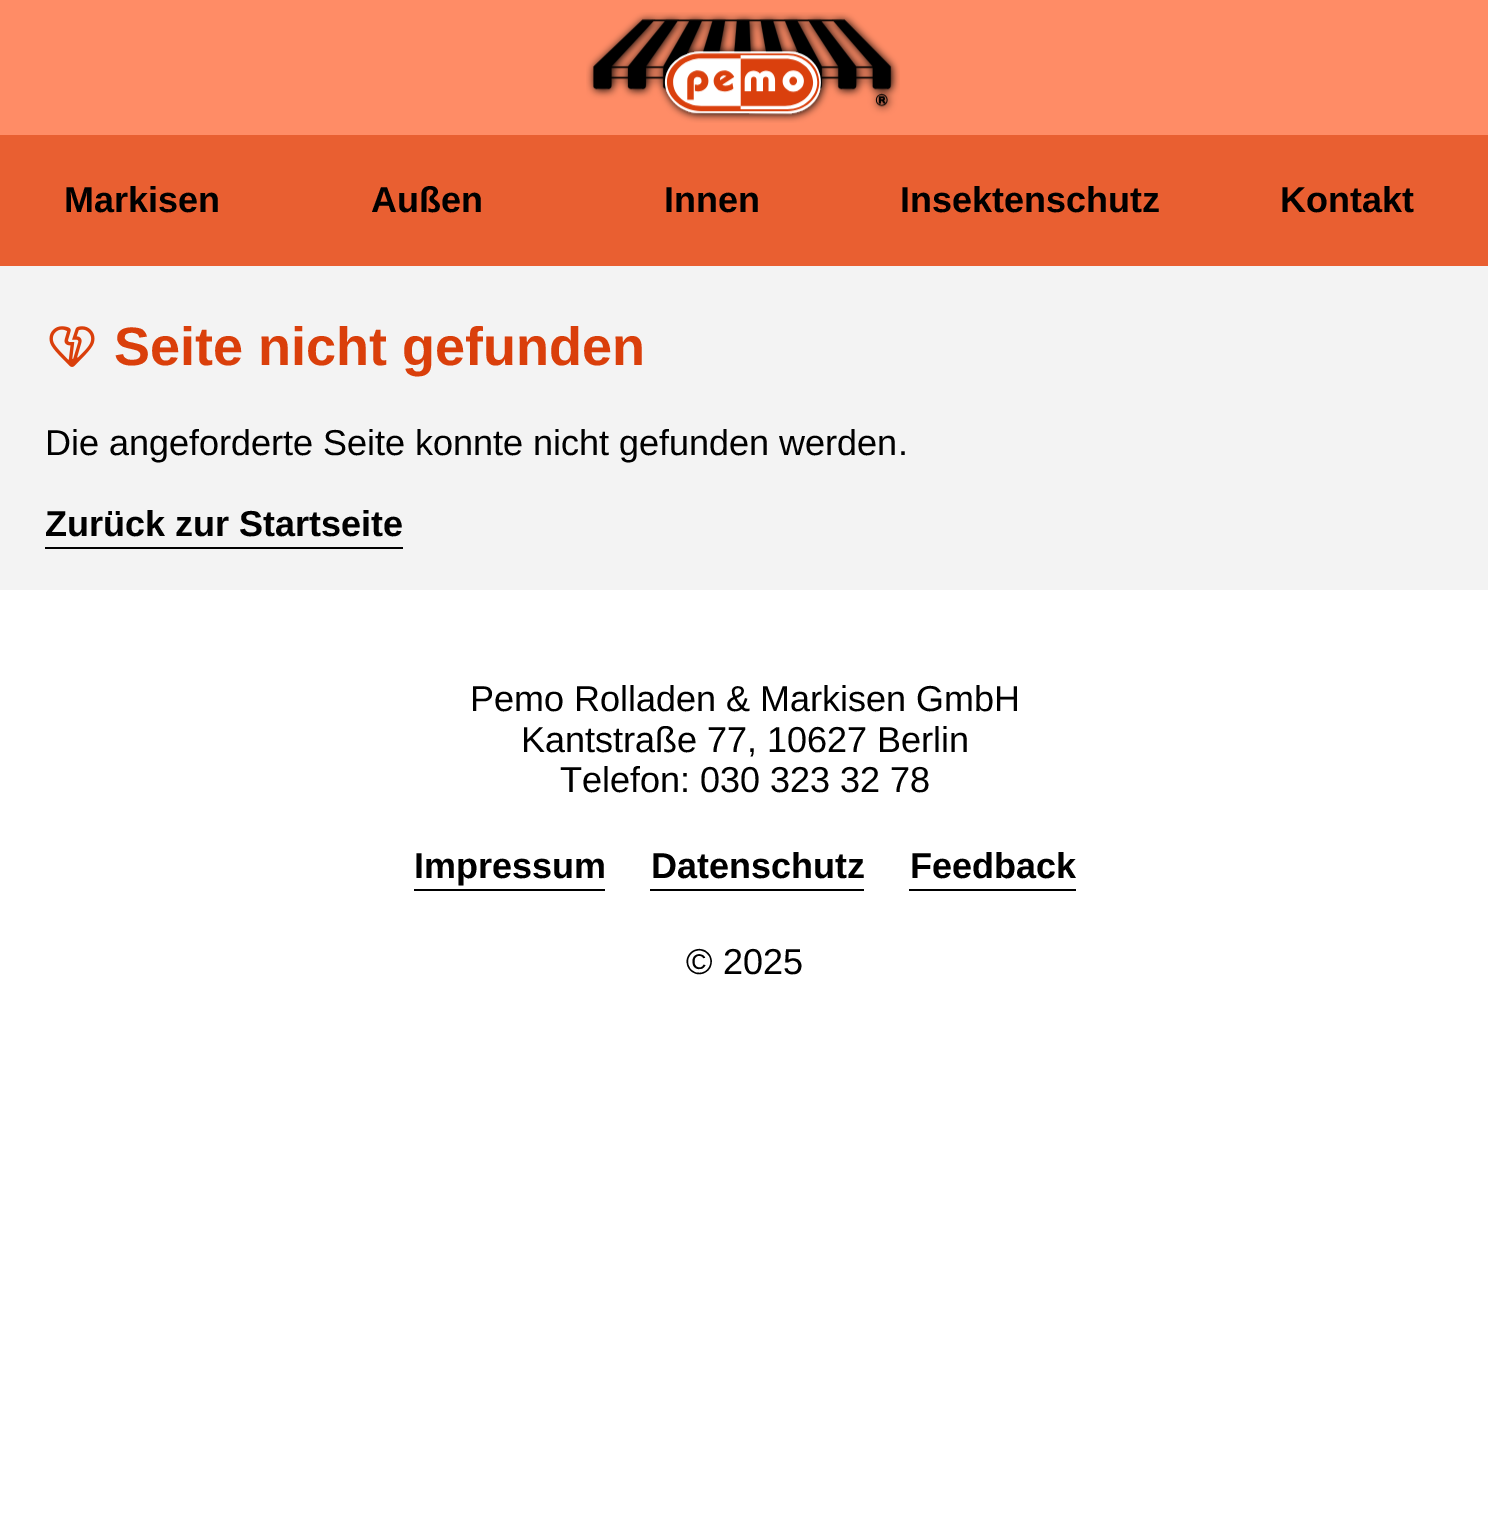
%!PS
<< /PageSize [1488 1522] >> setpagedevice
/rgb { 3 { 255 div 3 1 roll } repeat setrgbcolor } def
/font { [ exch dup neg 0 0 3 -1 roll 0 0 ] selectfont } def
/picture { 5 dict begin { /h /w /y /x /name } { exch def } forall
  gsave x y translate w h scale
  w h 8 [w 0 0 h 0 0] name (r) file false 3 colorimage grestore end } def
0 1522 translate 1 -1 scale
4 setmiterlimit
255 255 255 rgb
0 0 1488 1522 rectfill
233 95 49 rgb
0 135 1488 131 rectfill
255 140 102 rgb
0 0 1488 135 rectfill
(img/1.rgb) 586 12 314 111 picture
243 243 243 rgb
0 266 1488 324 rectfill
(img/2.rgb) 49 326 46 41 picture
[
  [45 547 358 2 0 0 0]
  [414 889 191 2 0 0 0]
  [650 889 214 2 0 0 0]
  [909 889 167 2 0 0 0]
] { aload pop rgb rectfill } forall
/LiberationSans-Bold 36 font
[
  [(Markisen) 64 212]
  [(Außen) 371 212]
  [(Innen) 664 212]
  [(Insektenschutz) 900 212]
  [(Kontakt) 1280 212]
] { aload pop moveto show } forall
/LiberationSans-Bold 54 font
218 63 11 rgb
114 365 moveto (Seite nicht gefunden) show
/LiberationSans-Regular 36 font
0 0 0 rgb
45 455 moveto (Die angeforderte Seite konnte nicht gefunden werden.) show
/LiberationSans-Bold 36 font
45 536 moveto (Zurück zur Startseite) show
/LiberationSans-Regular 36 font
[
  [(Pemo Rolladen & Markisen GmbH) 470 711]
  [(Kantstraße 77, 10627 Berlin) 521 752]
  [(Telefon: 030 323 32 78) 560 792]
] { aload pop moveto show } forall
/LiberationSans-Bold 36 font
[
  [(Impressum) 414 878]
  [(Datenschutz) 651 878]
  [(Feedback) 910 878]
] { aload pop moveto show } forall
/LiberationSans-Regular 36 font
686 974 moveto (© 2025) show
showpage
